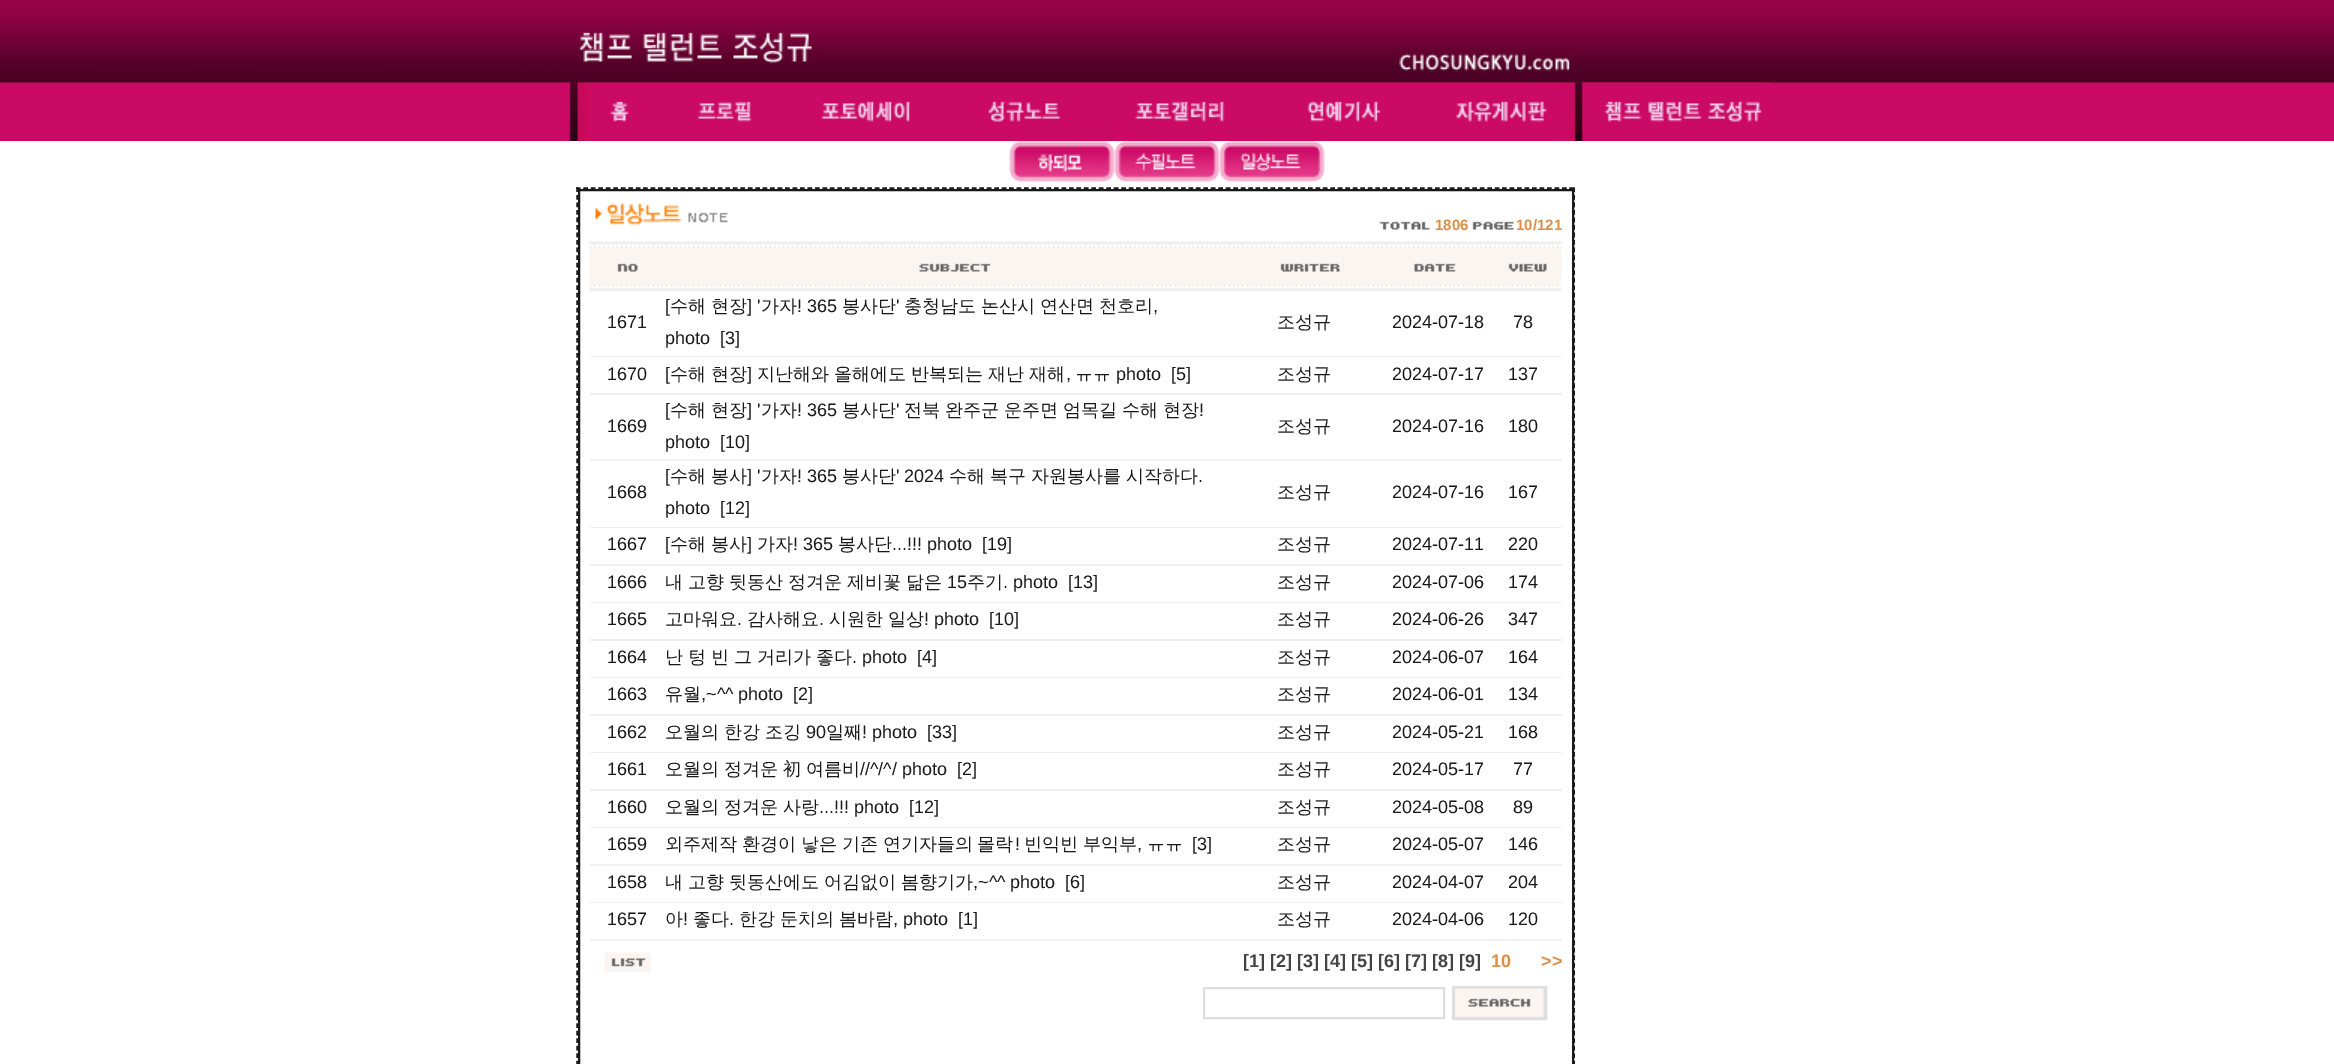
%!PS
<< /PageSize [2334 1064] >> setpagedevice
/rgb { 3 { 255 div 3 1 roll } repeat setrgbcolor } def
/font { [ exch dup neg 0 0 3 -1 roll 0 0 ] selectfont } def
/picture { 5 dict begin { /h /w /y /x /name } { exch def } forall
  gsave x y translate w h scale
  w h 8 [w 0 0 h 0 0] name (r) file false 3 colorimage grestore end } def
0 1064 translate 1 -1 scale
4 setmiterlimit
255 255 255 rgb
0 0 2334 1064 rectfill
(img/1.rgb) 0 0 2334 141 picture
(img/2.rgb) 565 32 1018 51 picture
(img/3.rgb) 565 82 103 59 picture
(img/4.rgb) 667 82 118 59 picture
(img/5.rgb) 784 82 167 59 picture
(img/6.rgb) 951 82 143 59 picture
(img/7.rgb) 1093 82 172 59 picture
(img/8.rgb) 1264 82 152 59 picture
(img/9.rgb) 1416 82 167 59 picture
(img/10.rgb) 1582 82 188 59 picture
(img/11.rgb) 1009 141 106 41 picture
(img/12.rgb) 1114 141 106 41 picture
(img/13.rgb) 1219 141 106 41 picture
25 25 25 rgb
1.5 setlinewidth
[4.5 2.97] 0 setdash
576 188 moveto 1575 188 lineto stroke
[4.5 3.03] 0 setdash
1574 187.5 moveto 1574 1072.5 lineto stroke
577 187.5 moveto 577 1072.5 lineto stroke
2 setlinewidth
[] 0 setdash
579 190 994 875 rectstroke
(img/14.rgb) 595 203 133 23 picture
(img/15.rgb) 1379 221 51 9 picture
(img/16.rgb) 1472 221 42 9 picture
(img/17.rgb) 589 241 973 50 picture
(img/18.rgb) 617 263 21 9 picture
(img/19.rgb) 919 263 72 9 picture
(img/20.rgb) 1280 263 60 9 picture
(img/21.rgb) 1414 263 42 9 picture
(img/22.rgb) 1508 263 39 9 picture
[
  [590 356 972 1 239 239 239]
  [590 393 972 2 239 239 239]
  [590 459 972 2 239 239 239]
  [590 527 972 1 239 239 239]
  [590 564 972 2 239 239 239]
  [590 602 972 1 239 239 239]
  [590 639 972 2 239 239 239]
  [590 677 972 1 239 239 239]
  [590 714 972 2 239 239 239]
  [590 752 972 1 239 239 239]
  [590 789 972 2 239 239 239]
  [590 827 972 1 239 239 239]
  [590 864 972 2 239 239 239]
  [590 902 972 1 239 239 239]
  [590 939 972 2 239 239 239]
] { aload pop rgb rectfill } forall
(img/23.rgb) 604 952 47 20 picture
222 222 222 rgb
1204 988 240 30 rectstroke
1453 987 93 32 rectstroke
(img/24.rgb) 1454 988 91 30 picture
/LiberationSans-Bold 15 font
220 142 71 rgb
1435 230 moveto (1806) show
1516 230 moveto (10/121) show
/LiberationSans-Regular 18 font
25 25 25 rgb
607 328 moveto (1671) show
665 312 moveto ([) show
/WenQuanYiZenHei-Medium 18 font
670 312 moveto (수해) show
711 312 moveto (현장) show
/LiberationSans-Regular 18 font
747 312 moveto (] ') show
/WenQuanYiZenHei-Medium 18 font
761 312 moveto (가자) show
/LiberationSans-Regular 18 font
797 312 moveto (! 365) show
/WenQuanYiZenHei-Medium 18 font
842 312 moveto (봉사단) show
/LiberationSans-Regular 18 font
896 312 moveto (') show
/WenQuanYiZenHei-Medium 18 font
[
  [(충청남도) 904 312]
  [(논산시) 981 312]
  [(연산면) 1040 312]
  [(천호리) 1099 312]
] { aload pop moveto show } forall
/LiberationSans-Regular 18 font
1153 312 moveto (,) show
665 344 moveto (photo  [3]) show
/WenQuanYiZenHei-Medium 18 font
1277 328 moveto (조성규) show
/LiberationSans-Regular 18 font
[
  [(2024-07-18) 1392 328]
  [(78) 1513 328]
  [(1670) 607 380]
  [([) 665 380]
] { aload pop moveto show } forall
/WenQuanYiZenHei-Medium 18 font
670 380 moveto -0.5 0 32 (수해 현장) widthshow
/LiberationSans-Regular 18 font
747 380 moveto (]) show
/WenQuanYiZenHei-Medium 18 font
757 380 moveto -0.5 0 32 (지난해와 올해에도 반복되는 재난 재해) widthshow
/LiberationSans-Regular 18 font
1066 380 moveto (,) show
/WenQuanYiZenHei-Medium 18 font
1075 380 moveto (ㅠㅠ) show
/LiberationSans-Regular 18 font
1116 380 moveto (photo  [5]) show
/WenQuanYiZenHei-Medium 18 font
1277 380 moveto (조성규) show
/LiberationSans-Regular 18 font
[
  [(2024-07-17) 1392 380]
  [(137) 1508 380]
  [(1669) 607 432]
  [([) 665 416]
] { aload pop moveto show } forall
/WenQuanYiZenHei-Medium 18 font
670 416 moveto (수해) show
711 416 moveto (현장) show
/LiberationSans-Regular 18 font
747 416 moveto (] ') show
/WenQuanYiZenHei-Medium 18 font
761 416 moveto (가자) show
/LiberationSans-Regular 18 font
797 416 moveto (! 365) show
/WenQuanYiZenHei-Medium 18 font
842 416 moveto (봉사단) show
/LiberationSans-Regular 18 font
896 416 moveto (') show
/WenQuanYiZenHei-Medium 18 font
[
  [(전북) 904 416]
  [(완주군) 945 416]
  [(운주면) 1004 416]
  [(엄목길) 1063 416]
  [(수해) 1122 416]
  [(현장) 1163 416]
] { aload pop moveto show } forall
/LiberationSans-Regular 18 font
1199 416 moveto (!) show
665 448 moveto (photo  [10]) show
/WenQuanYiZenHei-Medium 18 font
1277 432 moveto (조성규) show
/LiberationSans-Regular 18 font
[
  [(2024-07-16) 1392 432]
  [(180) 1508 432]
  [(1668) 607 498]
  [([) 665 482]
] { aload pop moveto show } forall
/WenQuanYiZenHei-Medium 18 font
670 482 moveto (수해) show
711 482 moveto (봉사) show
/LiberationSans-Regular 18 font
747 482 moveto (] ') show
/WenQuanYiZenHei-Medium 18 font
761 482 moveto (가자) show
/LiberationSans-Regular 18 font
797 482 moveto (! 365) show
/WenQuanYiZenHei-Medium 18 font
842 482 moveto (봉사단) show
/LiberationSans-Regular 18 font
896 482 moveto (' 2024) show
/WenQuanYiZenHei-Medium 18 font
[
  [(수해) 949 482]
  [(복구) 990 482]
  [(자원봉사를) 1031 482]
  [(시작하다) 1126 482]
] { aload pop moveto show } forall
/LiberationSans-Regular 18 font
1198 482 moveto (.) show
665 514 moveto (photo  [12]) show
/WenQuanYiZenHei-Medium 18 font
1277 498 moveto (조성규) show
/LiberationSans-Regular 18 font
[
  [(2024-07-16) 1392 498]
  [(167) 1508 498]
  [(1667) 607 550]
  [([) 665 550]
] { aload pop moveto show } forall
/WenQuanYiZenHei-Medium 18 font
670 550 moveto (수해) show
711 550 moveto (봉사) show
/LiberationSans-Regular 18 font
747 550 moveto (]) show
/WenQuanYiZenHei-Medium 18 font
757 550 moveto (가자) show
/LiberationSans-Regular 18 font
793 550 moveto (! 365) show
/WenQuanYiZenHei-Medium 18 font
838 550 moveto (봉사단) show
/LiberationSans-Regular 18 font
892 550 moveto (...!!! photo  [19]) show
/WenQuanYiZenHei-Medium 18 font
1277 550 moveto (조성규) show
/LiberationSans-Regular 18 font
[
  [(2024-07-11) 1392 550]
  [(220) 1508 550]
  [(1666) 607 588]
] { aload pop moveto show } forall
/WenQuanYiZenHei-Medium 18 font
[
  [(내) 665 588]
  [(고향) 688 588]
  [(뒷동산) 729 588]
  [(정겨운) 788 588]
  [(제비꽃) 847 588]
  [(닮은) 906 588]
] { aload pop moveto show } forall
/LiberationSans-Regular 18 font
947 588 moveto (15) show
/WenQuanYiZenHei-Medium 18 font
967 588 moveto (주기) show
/LiberationSans-Regular 18 font
1003 588 moveto (. photo  [13]) show
/WenQuanYiZenHei-Medium 18 font
1277 588 moveto (조성규) show
/LiberationSans-Regular 18 font
[
  [(2024-07-06) 1392 588]
  [(174) 1508 588]
  [(1665) 607 625]
] { aload pop moveto show } forall
/WenQuanYiZenHei-Medium 18 font
665 625 moveto (고마워요) show
/LiberationSans-Regular 18 font
737 625 moveto (.) show
/WenQuanYiZenHei-Medium 18 font
747 625 moveto (감사해요) show
/LiberationSans-Regular 18 font
819 625 moveto (.) show
/WenQuanYiZenHei-Medium 18 font
829 625 moveto (시원한) show
888 625 moveto (일상) show
/LiberationSans-Regular 18 font
924 625 moveto (! photo  [10]) show
/WenQuanYiZenHei-Medium 18 font
1277 625 moveto (조성규) show
/LiberationSans-Regular 18 font
[
  [(2024-06-26) 1392 625]
  [(347) 1508 625]
  [(1664) 607 663]
] { aload pop moveto show } forall
/WenQuanYiZenHei-Medium 18 font
[
  [(난) 665 663]
  [(텅) 688 663]
  [(빈) 711 663]
  [(그) 734 663]
  [(거리가) 757 663]
  [(좋다) 816 663]
] { aload pop moveto show } forall
/LiberationSans-Regular 18 font
852 663 moveto (. photo  [4]) show
/WenQuanYiZenHei-Medium 18 font
1277 663 moveto (조성규) show
/LiberationSans-Regular 18 font
[
  [(2024-06-07) 1392 663]
  [(164) 1508 663]
  [(1663) 607 700]
] { aload pop moveto show } forall
/WenQuanYiZenHei-Medium 18 font
665 700 moveto (유월) show
/LiberationSans-Regular 18 font
701 700 moveto (,~^^ photo  [2]) show
/WenQuanYiZenHei-Medium 18 font
1277 700 moveto (조성규) show
/LiberationSans-Regular 18 font
[
  [(2024-06-01) 1392 700]
  [(134) 1508 700]
  [(1662) 607 738]
] { aload pop moveto show } forall
/WenQuanYiZenHei-Medium 18 font
[
  [(오월의) 665 738]
  [(한강) 724 738]
  [(조깅) 765 738]
] { aload pop moveto show } forall
/LiberationSans-Regular 18 font
806 738 moveto (90) show
/WenQuanYiZenHei-Medium 18 font
826 738 moveto (일째) show
/LiberationSans-Regular 18 font
862 738 moveto (! photo  [33]) show
/WenQuanYiZenHei-Medium 18 font
1277 738 moveto (조성규) show
/LiberationSans-Regular 18 font
[
  [(2024-05-21) 1392 738]
  [(168) 1508 738]
  [(1661) 607 775]
] { aload pop moveto show } forall
/WenQuanYiZenHei-Medium 18 font
[
  [(오월의) 665 775]
  [(정겨운) 724 775]
  [(初) 783 775]
  [(여름비) 806 775]
] { aload pop moveto show } forall
/LiberationSans-Regular 18 font
860 775 moveto (//^/^/ photo  [2]) show
/WenQuanYiZenHei-Medium 18 font
1277 775 moveto (조성규) show
/LiberationSans-Regular 18 font
[
  [(2024-05-17) 1392 775]
  [(77) 1513 775]
  [(1660) 607 813]
] { aload pop moveto show } forall
/WenQuanYiZenHei-Medium 18 font
[
  [(오월의) 665 813]
  [(정겨운) 724 813]
  [(사랑) 783 813]
] { aload pop moveto show } forall
/LiberationSans-Regular 18 font
819 813 moveto (...!!! photo  [12]) show
/WenQuanYiZenHei-Medium 18 font
1277 813 moveto (조성규) show
/LiberationSans-Regular 18 font
[
  [(2024-05-08) 1392 813]
  [(89) 1513 813]
  [(1659) 607 850]
] { aload pop moveto show } forall
/WenQuanYiZenHei-Medium 18 font
665 850 moveto -0.5 0 32 (외주제작 환경이 낳은 기존 연기자들의 몰락) widthshow
/LiberationSans-Regular 18 font
1015 850 moveto (!) show
/WenQuanYiZenHei-Medium 18 font
1024 850 moveto -0.5 0 32 (빈익빈 부익부) widthshow
/LiberationSans-Regular 18 font
1137 850 moveto (,) show
/WenQuanYiZenHei-Medium 18 font
1147 850 moveto (ㅠㅠ) show
/LiberationSans-Regular 18 font
1192 850 moveto ([3]) show
/WenQuanYiZenHei-Medium 18 font
1277 850 moveto (조성규) show
/LiberationSans-Regular 18 font
[
  [(2024-05-07) 1392 850]
  [(146) 1508 850]
  [(1658) 607 888]
] { aload pop moveto show } forall
/WenQuanYiZenHei-Medium 18 font
[
  [(내) 665 888]
  [(고향) 688 888]
  [(뒷동산에도) 729 888]
  [(어김없이) 824 888]
  [(봄향기가) 901 888]
] { aload pop moveto show } forall
/LiberationSans-Regular 18 font
973 888 moveto (,~^^ photo  [6]) show
/WenQuanYiZenHei-Medium 18 font
1277 888 moveto (조성규) show
/LiberationSans-Regular 18 font
[
  [(2024-04-07) 1392 888]
  [(204) 1508 888]
  [(1657) 607 925]
] { aload pop moveto show } forall
/WenQuanYiZenHei-Medium 18 font
665 925 moveto (아) show
/LiberationSans-Regular 18 font
683 925 moveto (!) show
/WenQuanYiZenHei-Medium 18 font
693 925 moveto (좋다) show
/LiberationSans-Regular 18 font
729 925 moveto (.) show
/WenQuanYiZenHei-Medium 18 font
[
  [(한강) 739 925]
  [(둔치의) 780 925]
  [(봄바람) 839 925]
] { aload pop moveto show } forall
/LiberationSans-Regular 18 font
893 925 moveto (, photo  [1]) show
/WenQuanYiZenHei-Medium 18 font
1277 925 moveto (조성규) show
/LiberationSans-Regular 18 font
1392 925 moveto (2024-04-06) show
1508 925 moveto (120) show
/LiberationSans-Bold 18 font
68 68 68 rgb
1243 967 moveto ([1] [2] [3] [4] [5] [6] [7] [8] [9]) show
220 142 71 rgb
1491 967 moveto (10) show
1541 967 moveto (>>) show
showpage
